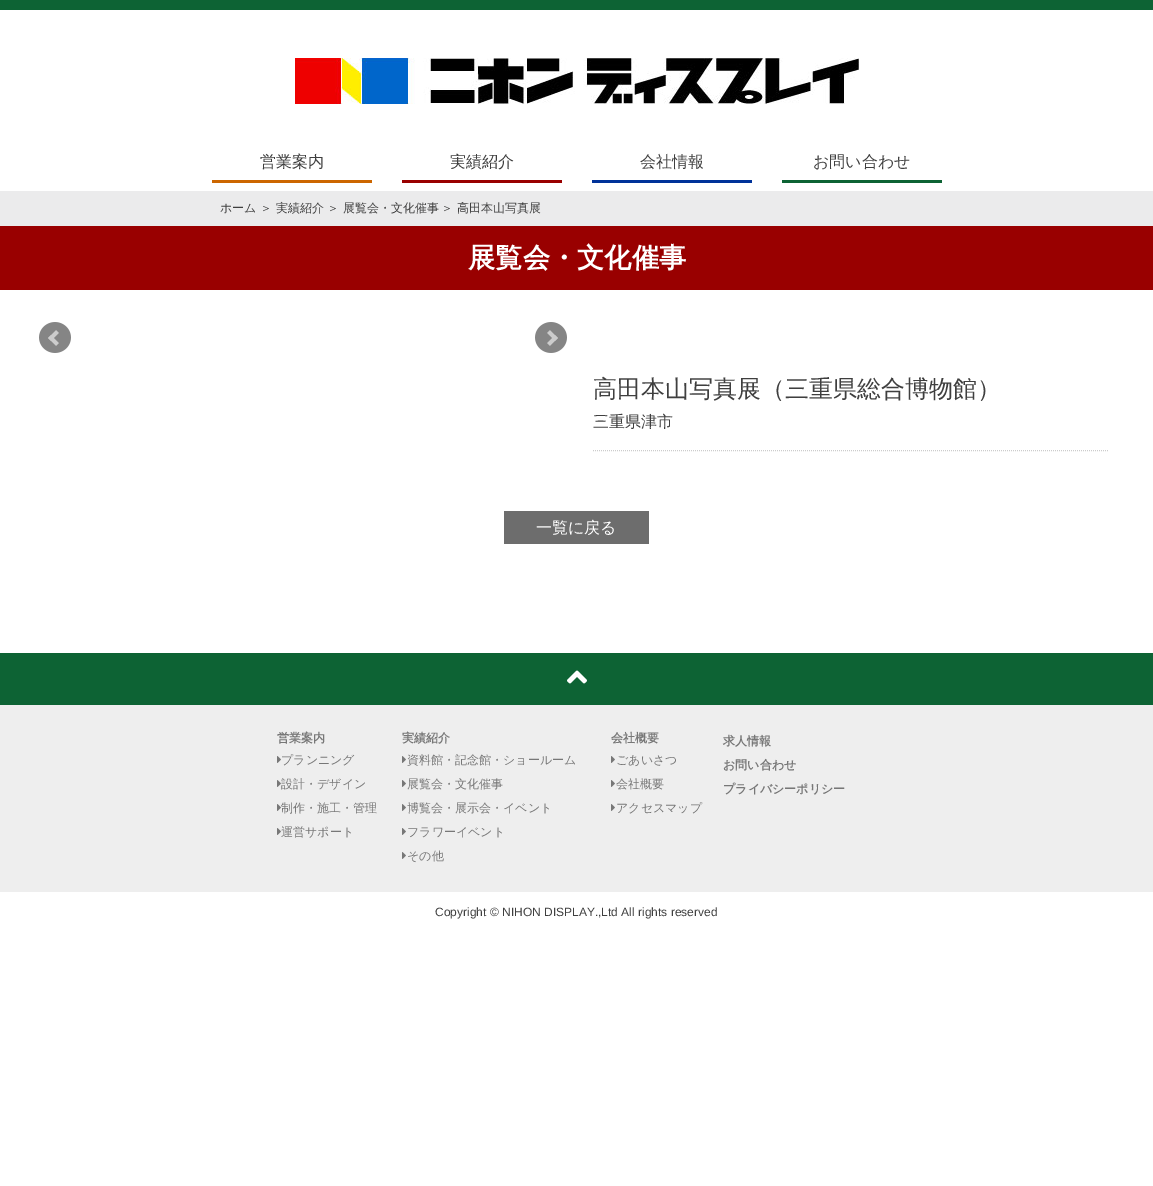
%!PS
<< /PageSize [1153 1186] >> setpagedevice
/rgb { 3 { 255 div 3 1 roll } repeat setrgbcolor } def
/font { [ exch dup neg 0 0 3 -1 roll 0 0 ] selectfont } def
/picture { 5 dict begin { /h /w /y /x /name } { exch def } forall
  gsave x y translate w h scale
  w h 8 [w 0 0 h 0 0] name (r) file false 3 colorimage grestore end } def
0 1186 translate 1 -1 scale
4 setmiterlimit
255 255 255 rgb
0 0 1153 1186 rectfill
13 99 52 rgb
0 0 1153 10 rectfill
(img/1.rgb) 295 58 564 46 picture
[
  [212 180 160 3 204 102 0]
  [402 180 160 3 153 0 0]
  [592 180 160 3 0 50 153]
  [782 180 160 3 13 99 52]
  [0 191 1153 35 235 235 236]
  [0 226 1153 64 153 0 0]
] { aload pop rgb rectfill } forall
(img/2.rgb) 39 322 32 31 picture
(img/3.rgb) 535 322 32 31 picture
204 204 204 rgb
[1 1] 0 setdash
593 450.5 moveto 1108 450.5 lineto stroke
109 109 109 rgb
504 511 145 33 rectfill
13 99 52 rgb
0 653 1153 52 rectfill
(img/4.rgb) 567 670 20 14 picture
238 238 238 rgb
0 705 1153 187 rectfill
(img/5.rgb) 277 756 4 7 picture
(img/5.rgb) 277 780 4 7 picture
(img/5.rgb) 277 804 4 7 picture
(img/5.rgb) 277 828 4 7 picture
(img/5.rgb) 402 756 4 7 picture
(img/5.rgb) 402 780 4 7 picture
(img/5.rgb) 402 804 4 7 picture
(img/5.rgb) 402 828 4 7 picture
(img/5.rgb) 402 852 4 7 picture
(img/5.rgb) 611 756 4 7 picture
(img/5.rgb) 611 780 4 7 picture
(img/5.rgb) 611 804 4 7 picture
/WenQuanYiZenHei-Medium 16 font
63 63 63 rgb
[
  [(営業案内) 260 167]
  [(実績紹介) 450 167]
  [(会社情報) 640 167]
  [(お問い合わせ) 813 167]
] { aload pop moveto show } forall
/WenQuanYiZenHei-Medium 12 font
220 212 moveto (ホーム ＞ 実績紹介 ＞ 展覧会・文化催事) show
441 212 moveto (＞ 高田本山写真展) show
/WenQuanYiZenHei-Bold 27.25 font
255 255 255 rgb
468 267 moveto (展覧会・文化催事) show
/WenQuanYiZenHei-Medium 24 font
63 63 63 rgb
593 397 moveto (高田本山写真展（三重県総合博物館）) show
/WenQuanYiZenHei-Medium 16 font
593 427 moveto (三重県津市) show
255 255 255 rgb
536 533 moveto (一覧に戻る) show
/WenQuanYiZenHei-Bold 12 font
119 119 119 rgb
277 742 moveto (営業案内) show
/WenQuanYiZenHei-Medium 12 font
[
  [(プランニング) 281 764]
  [(設計・デザイン) 281 788]
  [(制作・施工・管理) 281 812]
  [(運営サポート) 281 836]
] { aload pop moveto show } forall
/WenQuanYiZenHei-Bold 12 font
402 742 moveto (実績紹介) show
/WenQuanYiZenHei-Medium 12 font
[
  [(資料館・記念館・ショールーム) 407 764]
  [(展覧会・文化催事) 407 788]
  [(博覧会・展示会・イベント) 407 812]
  [(フラワーイベント) 407 836]
  [(その他) 407 860]
] { aload pop moveto show } forall
/WenQuanYiZenHei-Bold 12 font
611 742 moveto (会社概要) show
/WenQuanYiZenHei-Medium 12 font
[
  [(ごあいさつ) 616 764]
  [(会社概要) 616 788]
  [(アクセスマップ) 616 812]
] { aload pop moveto show } forall
/WenQuanYiZenHei-Bold 12 font
[
  [(求人情報) 723 745]
  [(お問い合わせ) 723 769]
  [(プライバシーポリシー) 723 793]
] { aload pop moveto show } forall
/LiberationSans-Regular 12 font
63 63 63 rgb
435 916 moveto (Copyright © NIHON DISPLAY.,Ltd All rights reserved) show
showpage
